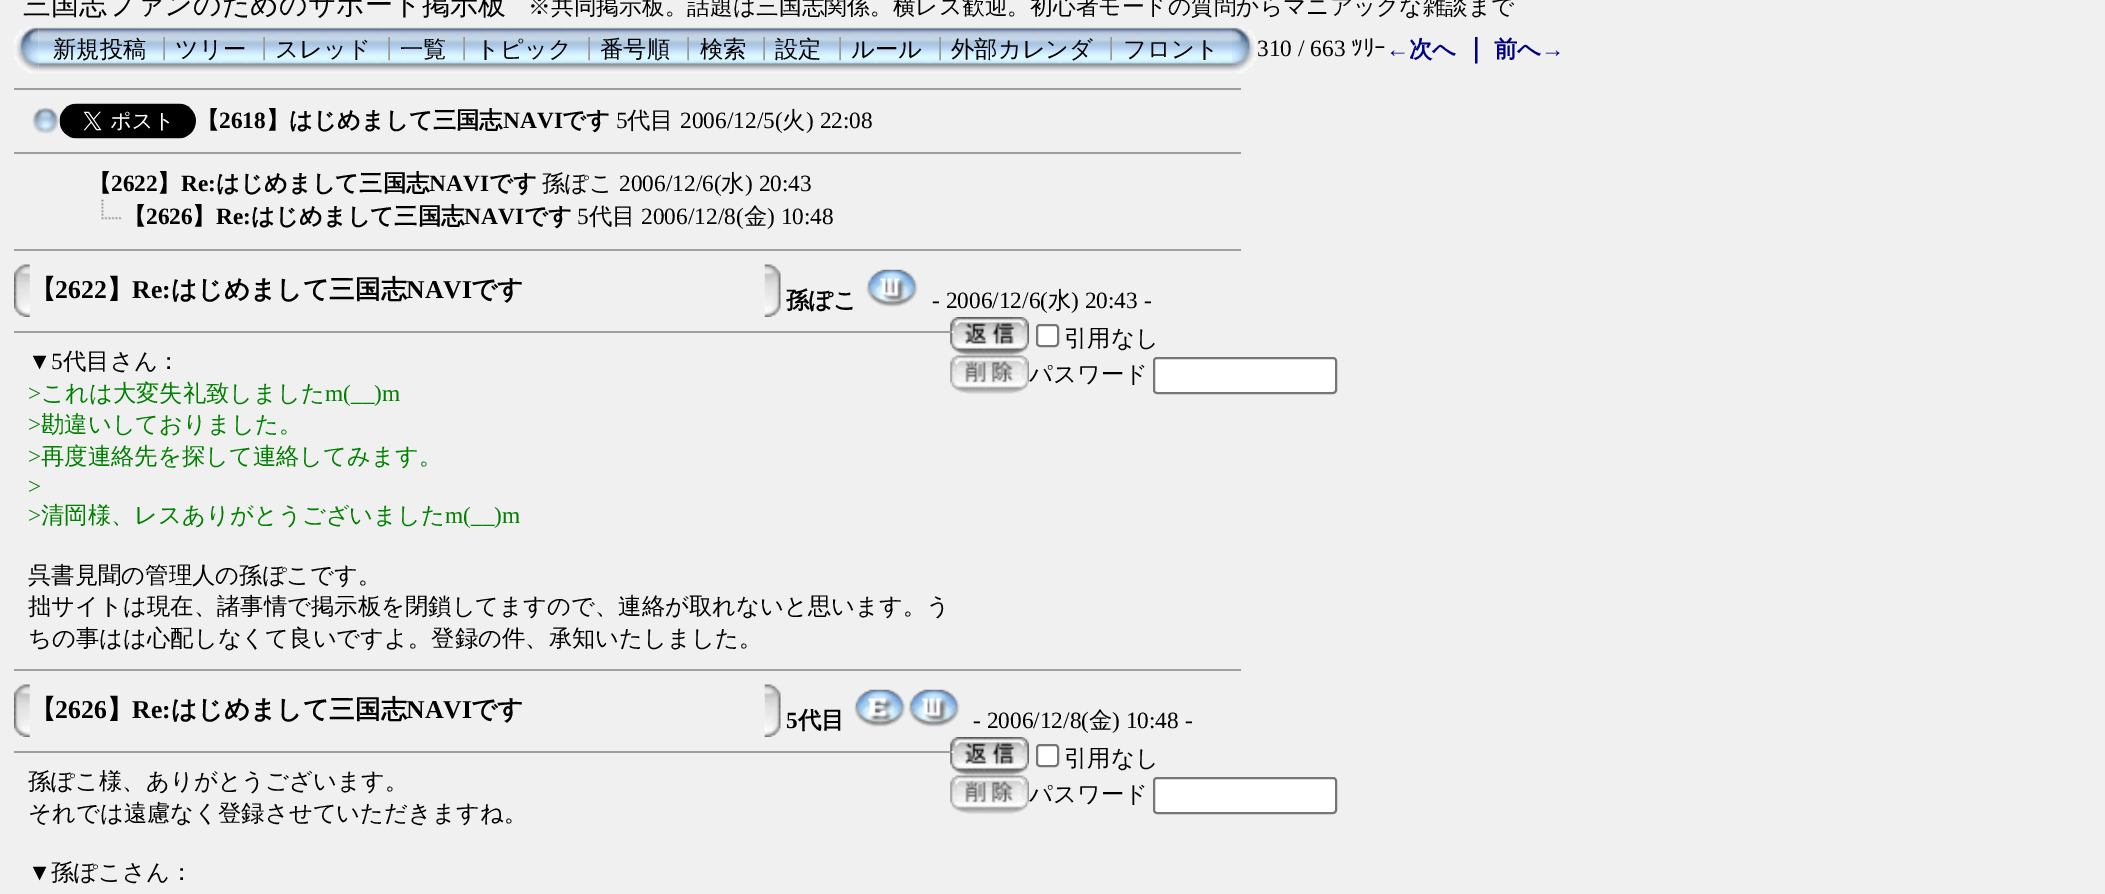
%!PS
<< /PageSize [2105 894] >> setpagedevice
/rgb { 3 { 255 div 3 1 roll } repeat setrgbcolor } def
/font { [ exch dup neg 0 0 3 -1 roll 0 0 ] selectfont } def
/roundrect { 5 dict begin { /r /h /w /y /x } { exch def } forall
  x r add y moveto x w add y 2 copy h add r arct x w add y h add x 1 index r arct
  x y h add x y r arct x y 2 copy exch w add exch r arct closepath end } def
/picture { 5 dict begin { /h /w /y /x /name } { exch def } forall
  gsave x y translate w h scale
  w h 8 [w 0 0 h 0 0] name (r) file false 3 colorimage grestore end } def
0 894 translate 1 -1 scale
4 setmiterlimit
240 240 240 rgb
0 0 2105 894 rectfill
(img/2.rgb) 38 26 1194 48 picture
(img/1.rgb) 14 26 25 48 picture
(img/3.rgb) 1232 26 25 48 picture
159 159 159 rgb
14 88 1229 2 rectfill
238 238 238 rgb
1241 88 2 2 rectfill
(img/4.rgb) 31 107 29 27 picture
(img/5.rgb) 59 103 137 36 picture
159 159 159 rgb
14 152 1229 2 rectfill
238 238 238 rgb
1241 152 2 2 rectfill
(img/6.rgb) 101 199 21 21 picture
159 159 159 rgb
14 249 1229 2 rectfill
238 238 238 rgb
1241 249 2 2 rectfill
(img/7.rgb) 14 264 16 53 picture
(img/8.rgb) 764 264 17 53 picture
(img/9.rgb) 866 269 52 38 picture
(img/10.rgb) 950 317 79 39 picture
159 159 159 rgb
14 331 940 2 rectfill
238 238 238 rgb
952 331 2 2 rectfill
255 255 255 rgb
1037 325 21 21 3 roundrect gsave fill grestore
118 118 118 rgb
2 setlinewidth
stroke
(img/11.rgb) 950 355 79 39 picture
255 255 255 rgb
1154 358 182 35 3 roundrect gsave fill grestore
118 118 118 rgb
stroke
159 159 159 rgb
14 669 1229 2 rectfill
238 238 238 rgb
1241 669 2 2 rectfill
(img/7.rgb) 14 684 16 53 picture
(img/8.rgb) 764 684 17 53 picture
(img/12.rgb) 854 689 52 38 picture
(img/13.rgb) 908 689 52 38 picture
(img/10.rgb) 950 737 79 39 picture
159 159 159 rgb
14 751 940 2 rectfill
238 238 238 rgb
952 751 2 2 rectfill
255 255 255 rgb
1037 745 21 21 3 roundrect gsave fill grestore
118 118 118 rgb
stroke
(img/11.rgb) 950 775 79 39 picture
255 255 255 rgb
1154 778 182 35 3 roundrect gsave fill grestore
118 118 118 rgb
stroke
/WenQuanYiZenHei-Medium 28 font
0 0 0 rgb
23 14 moveto (三国志ファンのためのサポート掲示板) show
/WenQuanYiZenHei-Medium 22.75 font
528 14 moveto (※共同掲示板。話題は三国志関係。横レス歓迎。初心者モードの質問からマニアックな雑談まで) show
/WenQuanYiZenHei-Medium 23.35 font
53 57 moveto (新規投稿) show
153 153 153 rgb
152 57 moveto (┃) show
0 0 0 rgb
175 57 moveto (ツリー) show
153 153 153 rgb
252 57 moveto (┃) show
0 0 0 rgb
275 57 moveto (スレッド) show
153 153 153 rgb
377 57 moveto (┃) show
0 0 0 rgb
400 57 moveto (一覧) show
153 153 153 rgb
452 57 moveto (┃) show
0 0 0 rgb
476 57 moveto (トピック) show
153 153 153 rgb
577 57 moveto (┃) show
0 0 0 rgb
600 57 moveto (番号順) show
153 153 153 rgb
676 57 moveto (┃) show
0 0 0 rgb
700 57 moveto (検索) show
153 153 153 rgb
752 57 moveto (┃) show
0 0 0 rgb
775 57 moveto (設定) show
153 153 153 rgb
828 57 moveto (┃) show
0 0 0 rgb
851 57 moveto (ルール) show
153 153 153 rgb
928 57 moveto (┃) show
0 0 0 rgb
951 57 moveto (外部カレンダ) show
153 153 153 rgb
1099 57 moveto (┃) show
0 0 0 rgb
1123 57 moveto (フロント) show
/LiberationSerif-Regular 23.35 font
1257 56 moveto (310 / 663) show
/IPAPGothic-Regular 23.35 font
1351 56 moveto (ﾂﾘｰ) show
/LiberationSerif-Bold 23.35 font
0 0 128 rgb
1386 57 moveto (←) show
/WenQuanYiZenHei-Bold 23.35 font
1409 57 moveto (次へ) show
/WenQuanYiZenHei-Bold 25.75 font
1463 57 moveto (｜) show
/WenQuanYiZenHei-Bold 23.35 font
1494 57 moveto (前へ) show
/LiberationSerif-Bold 23.35 font
1541 57 moveto (→) show
/WenQuanYiZenHei-Bold 23.35 font
0 0 0 rgb
196 128 moveto (【) show
/LiberationSerif-Bold 23.35 font
219 128 moveto (2618) show
/WenQuanYiZenHei-Bold 23.35 font
266 128 moveto (】はじめまして三国志) show
/LiberationSerif-Bold 23.35 font
503 128 moveto (NAVI) show
/WenQuanYiZenHei-Bold 23.35 font
562 128 moveto (です) show
/LiberationSerif-Regular 23.35 font
616 128 moveto (5) show
/WenQuanYiZenHei-Medium 23.35 font
627 128 moveto (代目) show
/LiberationSerif-Regular 23.35 font
680 128 moveto (2006/12/5\() show
/WenQuanYiZenHei-Medium 23.35 font
782 128 moveto (火) show
/LiberationSerif-Regular 23.35 font
806 128 moveto (\) 22:08) show
/WenQuanYiZenHei-Bold 23.35 font
88 191 moveto (【) show
/LiberationSerif-Bold 23.35 font
111 191 moveto (2622) show
/WenQuanYiZenHei-Bold 23.35 font
157 191 moveto (】) show
/LiberationSerif-Bold 23.35 font
181 191 moveto (Re:) show
/WenQuanYiZenHei-Bold 23.35 font
216 191 moveto (はじめまして三国志) show
/LiberationSerif-Bold 23.35 font
429 191 moveto (NAVI) show
/WenQuanYiZenHei-Bold 23.35 font
489 191 moveto (です) show
/WenQuanYiZenHei-Medium 23.35 font
542 191 moveto (孫ぽこ) show
/LiberationSerif-Regular 23.35 font
619 191 moveto (2006/12/6\() show
/WenQuanYiZenHei-Medium 23.35 font
721 191 moveto (水) show
/LiberationSerif-Regular 23.35 font
745 191 moveto (\) 20:43) show
/WenQuanYiZenHei-Bold 23.35 font
123 224 moveto (【) show
/LiberationSerif-Bold 23.35 font
146 224 moveto (2626) show
/WenQuanYiZenHei-Bold 23.35 font
192 224 moveto (】) show
/LiberationSerif-Bold 23.35 font
216 224 moveto (Re:) show
/WenQuanYiZenHei-Bold 23.35 font
251 224 moveto (はじめまして三国志) show
/LiberationSerif-Bold 23.35 font
464 224 moveto (NAVI) show
/WenQuanYiZenHei-Bold 23.35 font
524 224 moveto (です) show
/LiberationSerif-Regular 23.35 font
577 224 moveto (5) show
/WenQuanYiZenHei-Medium 23.35 font
589 224 moveto (代目) show
/LiberationSerif-Regular 23.35 font
641 224 moveto (2006/12/8\() show
/WenQuanYiZenHei-Medium 23.35 font
744 224 moveto (金) show
/LiberationSerif-Regular 23.35 font
767 224 moveto (\) 10:48) show
/WenQuanYiZenHei-Bold 25.75 font
30 298 moveto (【) show
/LiberationSerif-Bold 25.75 font
55 298 moveto (2622) show
/WenQuanYiZenHei-Bold 25.75 font
107 298 moveto (】) show
/LiberationSerif-Bold 25.75 font
132 298 moveto (Re:) show
/WenQuanYiZenHei-Bold 25.75 font
171 298 moveto (はじめまして三国志) show
/LiberationSerif-Bold 25.75 font
406 298 moveto (NAVI) show
/WenQuanYiZenHei-Bold 25.75 font
471 298 moveto (です) show
/WenQuanYiZenHei-Bold 23.35 font
786 308 moveto (孫ぽこ) show
/LiberationSerif-Regular 23.35 font
932 308 moveto (- 2006/12/6\() show
/WenQuanYiZenHei-Medium 23.35 font
1048 308 moveto (水) show
/LiberationSerif-Regular 23.35 font
1071 308 moveto (\) 20:43 -) show
28 369 moveto (▼5) show
/WenQuanYiZenHei-Medium 23.35 font
63 369 moveto (代目さん：) show
/LiberationSerif-Regular 23.35 font
0 128 0 rgb
28 401 moveto (>) show
/WenQuanYiZenHei-Medium 23.35 font
41 401 moveto (これは大変失礼致しました) show
/LiberationSerif-Regular 23.35 font
325 401 moveto (m\(__\)m) show
28 432 moveto (>) show
/WenQuanYiZenHei-Medium 23.35 font
41 432 moveto (勘違いしておりました。) show
/LiberationSerif-Regular 23.35 font
28 464 moveto (>) show
/WenQuanYiZenHei-Medium 23.35 font
41 464 moveto (再度連絡先を探して連絡してみます。) show
/LiberationSerif-Regular 23.35 font
28 494 moveto (>) show
28 523 moveto (>) show
/WenQuanYiZenHei-Medium 23.35 font
41 523 moveto (清岡様、レスありがとうございました) show
/LiberationSerif-Regular 23.35 font
445 523 moveto (m\(__\)m) show
/WenQuanYiZenHei-Medium 23.35 font
0 0 0 rgb
[
  [(呉書見聞の管理人の孫ぽこです。) 28 583]
  [(拙サイトは現在、諸事情で掲示板を閉鎖してますので、連絡が取れないと思います。う) 28 614]
  [(ちの事はは心配しなくて良いですよ。登録の件、承知いたしました。) 28 646]
  [(引用なし) 1064 346]
  [(パスワード) 1029 382]
] { aload pop moveto show } forall
/WenQuanYiZenHei-Bold 25.75 font
30 718 moveto (【) show
/LiberationSerif-Bold 25.75 font
55 718 moveto (2626) show
/WenQuanYiZenHei-Bold 25.75 font
107 718 moveto (】) show
/LiberationSerif-Bold 25.75 font
132 718 moveto (Re:) show
/WenQuanYiZenHei-Bold 25.75 font
171 718 moveto (はじめまして三国志) show
/LiberationSerif-Bold 25.75 font
406 718 moveto (NAVI) show
/WenQuanYiZenHei-Bold 25.75 font
471 718 moveto (です) show
/LiberationSerif-Bold 23.35 font
786 728 moveto (5) show
/WenQuanYiZenHei-Bold 23.35 font
798 728 moveto (代目) show
/LiberationSerif-Regular 23.35 font
973 728 moveto (- 2006/12/8\() show
/WenQuanYiZenHei-Medium 23.35 font
1089 728 moveto (金) show
/LiberationSerif-Regular 23.35 font
1112 728 moveto (\) 10:48 -) show
/WenQuanYiZenHei-Medium 23.35 font
28 789 moveto (孫ぽこ様、ありがとうございます。) show
28 821 moveto (それでは遠慮なく登録させていただきますね。) show
/LiberationSerif-Regular 23.35 font
28 880 moveto (▼) show
/WenQuanYiZenHei-Medium 23.35 font
[
  [(孫ぽこさん：) 51 880]
  [(引用なし) 1064 766]
  [(パスワード) 1029 802]
] { aload pop moveto show } forall
showpage
